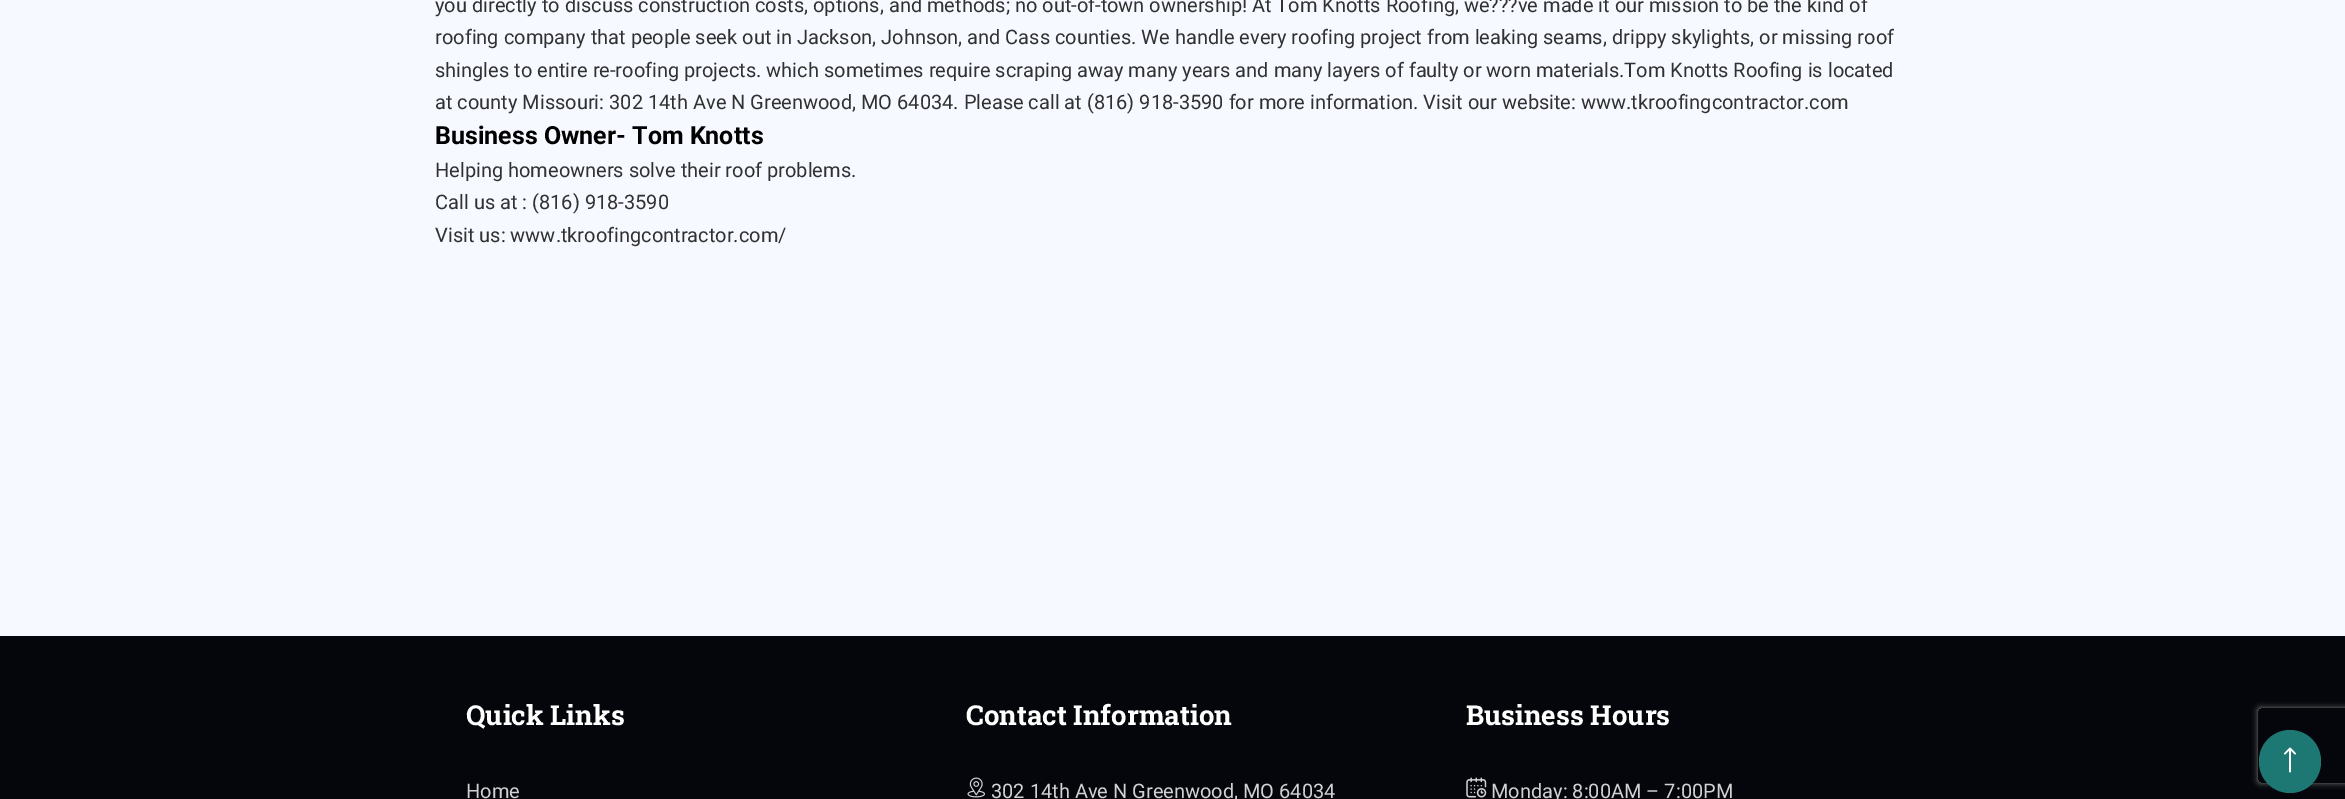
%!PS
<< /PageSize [2345 799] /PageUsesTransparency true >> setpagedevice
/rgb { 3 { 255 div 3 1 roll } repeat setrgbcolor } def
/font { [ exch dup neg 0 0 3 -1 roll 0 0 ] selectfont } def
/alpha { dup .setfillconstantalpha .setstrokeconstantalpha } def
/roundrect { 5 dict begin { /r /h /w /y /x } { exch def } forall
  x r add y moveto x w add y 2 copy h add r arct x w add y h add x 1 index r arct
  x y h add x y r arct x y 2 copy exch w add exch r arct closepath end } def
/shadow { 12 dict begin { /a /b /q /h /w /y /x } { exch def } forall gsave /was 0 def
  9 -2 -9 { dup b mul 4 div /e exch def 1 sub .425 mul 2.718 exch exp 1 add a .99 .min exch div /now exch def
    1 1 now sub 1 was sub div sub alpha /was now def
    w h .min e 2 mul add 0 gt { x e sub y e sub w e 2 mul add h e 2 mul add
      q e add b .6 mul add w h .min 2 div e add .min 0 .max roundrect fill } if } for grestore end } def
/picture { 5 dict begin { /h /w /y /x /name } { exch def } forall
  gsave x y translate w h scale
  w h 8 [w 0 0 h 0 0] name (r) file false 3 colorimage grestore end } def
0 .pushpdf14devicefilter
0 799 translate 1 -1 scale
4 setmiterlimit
4 6 11 rgb
0 0 2345 799 rectfill
246 249 255 rgb
0 0 2345 636 rectfill
(img/1.rgb) 967 777 18 21 picture
(img/2.rgb) 1466 777 21 21 picture
gsave
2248 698 moveto 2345 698 lineto 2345 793 lineto 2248 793 lineto closepath 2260.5 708 moveto 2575.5 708 lineto 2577 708 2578 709 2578 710.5 curveto 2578 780.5 lineto 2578 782 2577 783 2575.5 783 curveto 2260.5 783 lineto 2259 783 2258 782 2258 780.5 curveto 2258 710.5 lineto 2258 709 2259 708 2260.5 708 curveto closepath eoclip newpath
128 128 128 rgb
2258 708 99 75 2.5 3 1 shadow
grestore
29 119 115 rgb
2259 730 62 63 31 roundrect fill
(img/3.rgb) 2283 747 14 26 picture
/Roboto-Regular 20 font
49 49 49 rgb
[
  [(you directly to discuss construction costs, options, and methods; no out-of-town ownership! At Tom Knotts Roofing, we???ve made it our mission to be the kind of) 435 12]
  [(roofing company that people seek out in Jackson, Johnson, and Cass counties. We handle every roofing project from leaking seams, drippy skylights, or missing roof) 435 44]
  [(shingles to entire re-roofing projects. which sometimes require scraping away many years and many layers of faulty or worn materials.Tom Knotts Roofing is located) 435 77]
  [(at county Missouri: 302 14th Ave N Greenwood, MO 64034. Please call at \(816\) 918-3590 for more information. Visit our website: www.tkroofingcontractor.com) 435 109]
] { aload pop moveto show } forall
/Roboto-Bold 25 font
0 0 0 rgb
435 144 moveto (Business Owner- Tom Knotts) show
/Roboto-Regular 20 font
49 49 49 rgb
[
  [(Helping homeowners solve their roof problems.) 435 177]
  [(Call us at : \(816\) 918-3590) 435 209]
  [(Visit us: www.tkroofingcontractor.com/) 435 242]
] { aload pop moveto show } forall
/RobotoSlab-Bold 27.5 font
255 255 255 rgb
466 725 moveto (Quick Links) show
/Roboto-Regular 20 font
209 209 210 rgb
466 798 moveto (Home) show
/RobotoSlab-Bold 27.5 font
255 255 255 rgb
966 725 moveto (Contact Information) show
/Roboto-Regular 20 font
209 209 210 rgb
991 798 moveto (302 14th Ave N Greenwood, MO 64034) show
/RobotoSlab-Bold 27.5 font
255 255 255 rgb
1466 725 moveto (Business Hours) show
/Roboto-Regular 20 font
209 209 210 rgb
1491 798 moveto (Monday: 8:00AM – 7:00PM) show
.poppdf14devicefilter showpage
